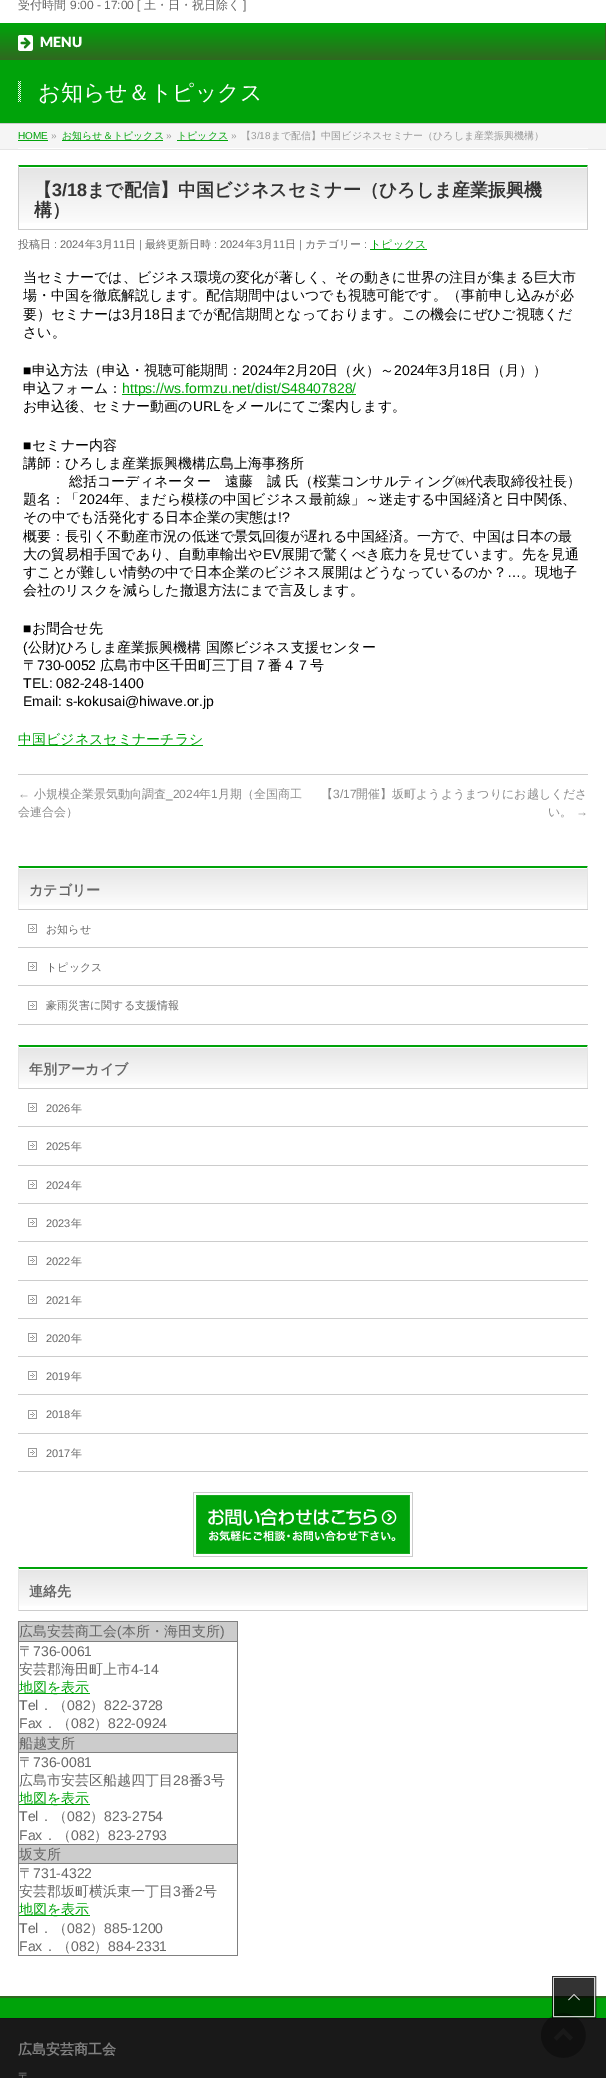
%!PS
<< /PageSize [606 2078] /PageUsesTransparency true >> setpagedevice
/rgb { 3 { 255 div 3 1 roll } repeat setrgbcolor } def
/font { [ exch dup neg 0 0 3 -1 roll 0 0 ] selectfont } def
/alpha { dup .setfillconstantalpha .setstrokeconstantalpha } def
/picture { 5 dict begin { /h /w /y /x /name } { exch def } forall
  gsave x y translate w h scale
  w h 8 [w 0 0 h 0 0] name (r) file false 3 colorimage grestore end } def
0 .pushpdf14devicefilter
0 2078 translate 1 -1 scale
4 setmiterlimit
255 255 255 rgb
0 0 606 2078 rectfill
0 163 10 rgb
0 23 606 2 rectfill
gsave 0 25 moveto 605 25 lineto 605 60 lineto 0 60 lineto closepath clip newpath
<< /ShadingType 2 /ColorSpace /DeviceRGB /Coords [303 25 303 60] /Extend [true true] /Function << /FunctionType 2 /Domain [0 1] /C0 [0 0.639 0.039] /C1 [0.188 0.408 0.125] /N 1 >> >> shfill grestore
48 104 32 rgb
605 25 1 35 rectfill
(img/1.rgb) 18 35 15 16 picture
0 163 10 rgb
0 60 606 63 rectfill
204 204 204 rgb
0 123 606 1 rectfill
(img/2.rgb) 18 81 3 21 picture
[
  [0 124 606 25 245 245 245]
  [0 149 606 1 229 229 229]
  [18 148 570 1 255 255 255]
  [18 140 30 1 0 163 10]
  [62 140 101 1 0 163 10]
  [177 140 51 1 0 163 10]
] { aload pop rgb rectfill } forall
gsave 19 168 moveto 587 168 lineto 587 223 lineto 19 223 lineto closepath clip newpath
<< /ShadingType 2 /ColorSpace /DeviceRGB /Coords [19 167 19 229] /Extend [true true] /Function << /FunctionType 2 /Domain [0 1] /C0 [0.898 0.898 0.898] /C1 [1 1 1] /N 1 >> >> shfill grestore
18 165 moveto 588 165 lineto 587 167 lineto 19 167 lineto closepath fill
204 204 204 rgb
588 165 moveto 588 230 lineto 587 229 lineto 587 167 lineto closepath fill
18 229 570 1 rectfill
18 230 moveto 18 165 lineto 19 167 lineto 19 229 lineto closepath fill
[
  [370 249 57 1 0 163 10]
  [122 394 234 1 0 163 10]
  [18 745 185 1 0 163 10]
  [18 774 570 1 204 204 204]
] { aload pop rgb rectfill } forall
gsave 19 869 moveto 587 869 lineto 587 905 lineto 19 905 lineto closepath clip newpath
<< /ShadingType 2 /ColorSpace /DeviceRGB /Coords [19 868 19 909] /Extend [true true] /Function << /FunctionType 2 /Domain [0 1] /C0 [0.898 0.898 0.898] /C1 [1 1 1] /N 1 >> >> shfill grestore
0 163 10 rgb
18 866 moveto 588 866 lineto 587 868 lineto 19 868 lineto closepath fill
229 229 229 rgb
588 866 moveto 588 910 lineto 587 909 lineto 587 868 lineto closepath fill
204 204 204 rgb
18 909 570 1 rectfill
229 229 229 rgb
18 910 moveto 18 866 lineto 19 868 lineto 19 909 lineto closepath fill
204 204 204 rgb
18 947 570 1 rectfill
(img/3.rgb) 28 924 9 9 picture
18 985 570 1 rectfill
(img/3.rgb) 28 962 9 9 picture
18 1024 570 1 rectfill
(img/3.rgb) 28 1001 9 9 picture
gsave 19 1048 moveto 587 1048 lineto 587 1084 lineto 19 1084 lineto closepath clip newpath
<< /ShadingType 2 /ColorSpace /DeviceRGB /Coords [19 1047 19 1088] /Extend [true true] /Function << /FunctionType 2 /Domain [0 1] /C0 [0.898 0.898 0.898] /C1 [1 1 1] /N 1 >> >> shfill grestore
0 163 10 rgb
18 1045 moveto 588 1045 lineto 587 1047 lineto 19 1047 lineto closepath fill
229 229 229 rgb
588 1045 moveto 588 1089 lineto 587 1088 lineto 587 1047 lineto closepath fill
204 204 204 rgb
18 1088 570 1 rectfill
229 229 229 rgb
18 1089 moveto 18 1045 lineto 19 1047 lineto 19 1088 lineto closepath fill
204 204 204 rgb
18 1126 570 1 rectfill
(img/3.rgb) 28 1103 9 9 picture
18 1165 570 1 rectfill
(img/3.rgb) 28 1141 9 9 picture
18 1203 570 1 rectfill
(img/3.rgb) 28 1180 9 9 picture
18 1241 570 1 rectfill
(img/3.rgb) 28 1218 9 9 picture
18 1280 570 1 rectfill
(img/3.rgb) 28 1256 9 9 picture
18 1318 570 1 rectfill
(img/3.rgb) 28 1295 9 9 picture
18 1356 570 1 rectfill
(img/3.rgb) 28 1333 9 9 picture
18 1394 570 1 rectfill
(img/3.rgb) 28 1371 9 9 picture
18 1433 570 1 rectfill
(img/3.rgb) 28 1410 9 9 picture
18 1471 570 1 rectfill
(img/3.rgb) 28 1448 9 9 picture
0 163 10 rgb
196 1495 214 59 rectfill
(img/4.rgb) 193 1492 220 65 picture
gsave 19 1570 moveto 587 1570 lineto 587 1606 lineto 19 1606 lineto closepath clip newpath
<< /ShadingType 2 /ColorSpace /DeviceRGB /Coords [19 1569 19 1610] /Extend [true true] /Function << /FunctionType 2 /Domain [0 1] /C0 [0.898 0.898 0.898] /C1 [1 1 1] /N 1 >> >> shfill grestore
18 1567 moveto 588 1567 lineto 587 1569 lineto 19 1569 lineto closepath fill
229 229 229 rgb
588 1567 moveto 588 1611 lineto 587 1610 lineto 587 1569 lineto closepath fill
204 204 204 rgb
18 1610 570 1 rectfill
229 229 229 rgb
18 1611 moveto 18 1567 lineto 19 1569 lineto 19 1610 lineto closepath fill
[
  [18 1621 220 1 128 128 128]
  [237 1621 1 335 128 128 128]
  [18 1955 220 1 128 128 128]
  [18 1621 1 335 128 128 128]
  [19 1622 218 19 204 204 204]
  [18 1641 220 1 128 128 128]
  [19 1693 71 1 0 163 10]
  [19 1734 218 18 204 204 204]
  [18 1733 220 1 128 128 128]
  [18 1752 220 1 128 128 128]
  [19 1804 71 1 0 163 10]
  [19 1845 218 18 204 204 204]
  [18 1844 220 1 128 128 128]
  [18 1863 220 1 128 128 128]
  [19 1915 71 1 0 163 10]
  [0 1998 606 20 0 163 10]
  [0 1996 606 2 48 104 32]
  [0 2019 606 59 25 25 25]
  [0 2018 606 1 21 21 21]
] { aload pop rgb rectfill } forall
(img/5.rgb) 541 2013 45 45 picture
0.8 alpha
0 0 0 rgb
2 setlinewidth
553 1977 42 40 rectstroke
255 255 255 rgb
1 setlinewidth
553.5 1977.5 41 39 rectstroke
0 0 0 rgb
554 1978 40 38 rectfill
1 alpha
(img/6.rgb) 568 1994 12 7 picture
/WenQuanYiZenHei-Medium 12 font
102 102 102 rgb
18 9 moveto (受付時間) show
/LiberationSans-Regular 12 font
70 9 moveto (9:00 - 17:00 [) show
/WenQuanYiZenHei-Medium 12 font
144 9 moveto (土・日・祝日除く) show
/LiberationSans-Regular 12 font
243 9 moveto (]) show
/Lato-Black 14 font
255 255 255 rgb
40 47 moveto (MENU) show
/WenQuanYiZenHei-Medium 22 font
38 100 moveto (お知らせ＆トピックス) show
/LiberationSans-Regular 10 font
0 163 10 rgb
18 139 moveto (HOME) show
153 153 153 rgb
51 139 moveto (») show
/WenQuanYiZenHei-Medium 10 font
0 163 10 rgb
62 139 moveto (お知らせ＆トピックス) show
/LiberationSans-Regular 10 font
153 153 153 rgb
166 139 moveto (») show
/WenQuanYiZenHei-Medium 10 font
0 163 10 rgb
177 139 moveto (トピックス) show
/LiberationSans-Regular 10 font
153 153 153 rgb
231 139 moveto (») show
/WenQuanYiZenHei-Medium 10 font
241 139 moveto (【) show
/LiberationSans-Regular 10 font
251 139 moveto (3/18) show
/WenQuanYiZenHei-Medium 10 font
271 139 moveto (まで配信】中国ビジネスセミナー（ひろしま産業振興機構）) show
/WenQuanYiZenHei-Bold 18 font
51 51 51 rgb
34 196 moveto (【) show
/LiberationSans-Bold 18 font
52 196 moveto (3/18) show
/WenQuanYiZenHei-Bold 18 font
87 196 moveto (まで配信】中国ビジネスセミナー（ひろしま産業振興機) show
34 216 moveto (構）) show
/WenQuanYiZenHei-Medium 11 font
102 102 102 rgb
18 248 moveto (投稿日) show
/LiberationSans-Regular 11 font
54 248 moveto (: 2024) show
/WenQuanYiZenHei-Medium 11 font
85 248 moveto (年) show
/LiberationSans-Regular 11 font
96 248 moveto (3) show
/WenQuanYiZenHei-Medium 11 font
102 248 moveto (月) show
/LiberationSans-Regular 11 font
113 248 moveto (11) show
/WenQuanYiZenHei-Medium 11 font
125 248 moveto (日) show
/LiberationSans-Regular 11 font
139 248 moveto (|) show
/WenQuanYiZenHei-Medium 11 font
145 248 moveto (最終更新日時) show
/LiberationSans-Regular 11 font
214 248 moveto (: 2024) show
/WenQuanYiZenHei-Medium 11 font
245 248 moveto (年) show
/LiberationSans-Regular 11 font
256 248 moveto (3) show
/WenQuanYiZenHei-Medium 11 font
262 248 moveto (月) show
/LiberationSans-Regular 11 font
273 248 moveto (11) show
/WenQuanYiZenHei-Medium 11 font
285 248 moveto (日) show
/LiberationSans-Regular 11 font
299 248 moveto (|) show
/WenQuanYiZenHei-Medium 11 font
305 248 moveto (カテゴリー) show
/LiberationSans-Regular 11 font
364 248 moveto (:) show
/WenQuanYiZenHei-Medium 11 font
0 163 10 rgb
370 248 moveto (トピックス) show
/WenQuanYiZenHei-Medium 14 font
0 0 0 rgb
[
  [(当セミナーでは、ビジネス環境の変化が著しく、その動きに世界の注目が集まる巨大市) 23 282]
  [(場・中国を徹底解説します。配信期間中はいつでも視聴可能です。（事前申し込みが必) 23 300]
  [(要）セミナーは) 23 319]
] { aload pop moveto show } forall
/LiberationSans-Regular 14 font
122 319 moveto (3) show
/WenQuanYiZenHei-Medium 14 font
130 319 moveto (月) show
/LiberationSans-Regular 14 font
144 319 moveto (18) show
/WenQuanYiZenHei-Medium 14 font
160 319 moveto (日までが配信期間となっております。この機会にぜひご視聴くだ) show
23 337 moveto (さい。) show
/LiberationSans-Regular 14 font
23 375 moveto (■) show
/WenQuanYiZenHei-Medium 14 font
32 375 moveto (申込方法（申込・視聴可能期間：) show
/LiberationSans-Regular 14 font
242 375 moveto (2024) show
/WenQuanYiZenHei-Medium 14 font
273 375 moveto (年) show
/LiberationSans-Regular 14 font
287 375 moveto (2) show
/WenQuanYiZenHei-Medium 14 font
295 375 moveto (月) show
/LiberationSans-Regular 14 font
309 375 moveto (20) show
/WenQuanYiZenHei-Medium 14 font
324 375 moveto (日（火）～) show
/LiberationSans-Regular 14 font
394 375 moveto (2024) show
/WenQuanYiZenHei-Medium 14 font
425 375 moveto (年) show
/LiberationSans-Regular 14 font
439 375 moveto (3) show
/WenQuanYiZenHei-Medium 14 font
447 375 moveto (月) show
/LiberationSans-Regular 14 font
461 375 moveto (18) show
/WenQuanYiZenHei-Medium 14 font
477 375 moveto (日（月））) show
23 393 moveto (申込フォーム：) show
/LiberationSans-Regular 14 font
0 163 10 rgb
122 393 moveto (https://ws.formzu.net/dist/S48407828/) show
/WenQuanYiZenHei-Medium 14 font
0 0 0 rgb
23 411 moveto (お申込後、セミナー動画の) show
/LiberationSans-Regular 14 font
193 411 moveto (URL) show
/WenQuanYiZenHei-Medium 14 font
221 411 moveto (をメールにてご案内します。) show
/LiberationSans-Regular 14 font
23 450 moveto (■) show
/WenQuanYiZenHei-Medium 14 font
[
  [(セミナー内容) 32 450]
  [(講師：ひろしま産業振興機構広島上海事務所) 23 468]
  [(総括コーディネーター　遠藤　誠 氏（桜葉コンサルティング㈱代表取締役社長）) 69 486]
  [(題名：「) 23 504]
] { aload pop moveto show } forall
/LiberationSans-Regular 14 font
79 504 moveto (2024) show
/WenQuanYiZenHei-Medium 14 font
110 504 moveto (年、まだら模様の中国ビジネス最前線」～迷走する中国経済と日中関係、) show
23 522 moveto (その中でも活発化する日本企業の実態は) show
/LiberationSans-Regular 14 font
278 522 moveto (!?) show
/WenQuanYiZenHei-Medium 14 font
23 541 moveto (概要：長引く不動産市況の低迷で景気回復が遅れる中国経済。一方で、中国は日本の最) show
23 559 moveto (大の貿易相手国であり、自動車輸出や) show
/LiberationSans-Regular 14 font
263 559 moveto (EV) show
/WenQuanYiZenHei-Medium 14 font
281 559 moveto (展開で驚くべき底力を見せています。先を見通) show
23 577 moveto (すことが難しい情勢の中で日本企業のビジネス展開はどうなっているのか？) show
/LiberationSans-Regular 14 font
507 577 moveto (…) show
/WenQuanYiZenHei-Medium 14 font
521 577 moveto (。現地子) show
23 595 moveto (会社のリスクを減らした撤退方法にまで言及します。) show
/LiberationSans-Regular 14 font
23 633 moveto (■) show
/WenQuanYiZenHei-Medium 14 font
32 633 moveto (お問合せ先) show
/LiberationSans-Regular 14 font
23 652 moveto (\() show
/WenQuanYiZenHei-Medium 14 font
28 652 moveto (公財) show
/LiberationSans-Regular 14 font
56 652 moveto (\)) show
/WenQuanYiZenHei-Medium 14 font
60 652 moveto (ひろしま産業振興機構 国際ビジネス支援センター) show
23 670 moveto (〒) show
/LiberationSans-Regular 14 font
37 670 moveto (730-0052) show
/WenQuanYiZenHei-Medium 14 font
100 670 moveto (広島市中区千田町三丁目７番４７号) show
/LiberationSans-Regular 14 font
23 688 moveto (TEL: 082-248-1400) show
23 706 moveto (Email: s-kokusai@hiwave.or.jp) show
/WenQuanYiZenHei-Medium 14 font
0 163 10 rgb
18 744 moveto (中国ビジネスセミナーチラシ) show
/LiberationSans-Regular 12 font
136 136 136 rgb
18 798 moveto (←) show
/WenQuanYiZenHei-Medium 12 font
34 798 moveto (小規模企業景気動向調査) show
/LiberationSans-Regular 12 font
166 798 moveto (_2024) show
/WenQuanYiZenHei-Medium 12 font
199 798 moveto (年) show
/LiberationSans-Regular 12 font
211 798 moveto (1) show
/WenQuanYiZenHei-Medium 12 font
[
  [(月期（全国商工) 218 798]
  [(会連合会）) 18 816]
  [(【) 321 798]
] { aload pop moveto show } forall
/LiberationSans-Regular 12 font
333 798 moveto (3/17) show
/WenQuanYiZenHei-Medium 12 font
356 798 moveto (開催】坂町ようようまつりにお越しくださ) show
548 816 moveto (い。) show
/LiberationSans-Regular 12 font
576 816 moveto (→) show
/WenQuanYiZenHei-Bold 14 font
102 102 102 rgb
29 895 moveto (カテゴリー) show
/WenQuanYiZenHei-Medium 11 font
[
  [(お知らせ) 46 933]
  [(トピックス) 46 971]
  [(豪雨災害に関する支援情報) 46 1009]
] { aload pop moveto show } forall
/WenQuanYiZenHei-Bold 14 font
29 1074 moveto (年別アーカイブ) show
/LiberationSans-Regular 11 font
46 1112 moveto (2026) show
/WenQuanYiZenHei-Medium 11 font
71 1112 moveto (年) show
/LiberationSans-Regular 11 font
46 1150 moveto (2025) show
/WenQuanYiZenHei-Medium 11 font
71 1150 moveto (年) show
/LiberationSans-Regular 11 font
46 1189 moveto (2024) show
/WenQuanYiZenHei-Medium 11 font
71 1189 moveto (年) show
/LiberationSans-Regular 11 font
46 1227 moveto (2023) show
/WenQuanYiZenHei-Medium 11 font
71 1227 moveto (年) show
/LiberationSans-Regular 11 font
46 1265 moveto (2022) show
/WenQuanYiZenHei-Medium 11 font
71 1265 moveto (年) show
/LiberationSans-Regular 11 font
46 1304 moveto (2021) show
/WenQuanYiZenHei-Medium 11 font
71 1304 moveto (年) show
/LiberationSans-Regular 11 font
46 1342 moveto (2020) show
/WenQuanYiZenHei-Medium 11 font
71 1342 moveto (年) show
/LiberationSans-Regular 11 font
46 1380 moveto (2019) show
/WenQuanYiZenHei-Medium 11 font
71 1380 moveto (年) show
/LiberationSans-Regular 11 font
46 1418 moveto (2018) show
/WenQuanYiZenHei-Medium 11 font
71 1418 moveto (年) show
/LiberationSans-Regular 11 font
46 1457 moveto (2017) show
/WenQuanYiZenHei-Medium 11 font
71 1457 moveto (年) show
/WenQuanYiZenHei-Bold 14 font
29 1596 moveto (連絡先) show
/WenQuanYiZenHei-Medium 14 font
19 1636 moveto (広島安芸商工会) show
/LiberationSans-Regular 14 font
117 1636 moveto (\() show
/WenQuanYiZenHei-Medium 14 font
122 1636 moveto (本所・海田支所) show
/LiberationSans-Regular 14 font
220 1636 moveto (\)) show
/WenQuanYiZenHei-Medium 14 font
19 1656 moveto (〒) show
/LiberationSans-Regular 14 font
33 1656 moveto (736-0061) show
/WenQuanYiZenHei-Medium 14 font
19 1674 moveto (安芸郡海田町上市) show
/LiberationSans-Regular 14 font
131 1674 moveto (4-14) show
/WenQuanYiZenHei-Medium 14 font
0 163 10 rgb
19 1692 moveto (地図を表示) show
/LiberationSans-Regular 14 font
102 102 102 rgb
19 1710 moveto (Tel) show
/WenQuanYiZenHei-Medium 14 font
39 1710 moveto (．（) show
/LiberationSans-Regular 14 font
67 1710 moveto (082) show
/WenQuanYiZenHei-Medium 14 font
90 1710 moveto (）) show
/LiberationSans-Regular 14 font
104 1710 moveto (822-3728) show
19 1728 moveto (Fax) show
/WenQuanYiZenHei-Medium 14 font
43 1728 moveto (．（) show
/LiberationSans-Regular 14 font
71 1728 moveto (082) show
/WenQuanYiZenHei-Medium 14 font
94 1728 moveto (）) show
/LiberationSans-Regular 14 font
108 1728 moveto (822-0924) show
/WenQuanYiZenHei-Medium 14 font
19 1748 moveto (船越支所) show
19 1767 moveto (〒) show
/LiberationSans-Regular 14 font
33 1767 moveto (736-0081) show
/WenQuanYiZenHei-Medium 14 font
19 1785 moveto (広島市安芸区船越四丁目) show
/LiberationSans-Regular 14 font
173 1785 moveto (28) show
/WenQuanYiZenHei-Medium 14 font
189 1785 moveto (番) show
/LiberationSans-Regular 14 font
203 1785 moveto (3) show
/WenQuanYiZenHei-Medium 14 font
211 1785 moveto (号) show
0 163 10 rgb
19 1803 moveto (地図を表示) show
/LiberationSans-Regular 14 font
102 102 102 rgb
19 1821 moveto (Tel) show
/WenQuanYiZenHei-Medium 14 font
39 1821 moveto (．（) show
/LiberationSans-Regular 14 font
67 1821 moveto (082) show
/WenQuanYiZenHei-Medium 14 font
90 1821 moveto (）) show
/LiberationSans-Regular 14 font
104 1821 moveto (823-2754) show
19 1840 moveto (Fax) show
/WenQuanYiZenHei-Medium 14 font
43 1840 moveto (．（) show
/LiberationSans-Regular 14 font
71 1840 moveto (082) show
/WenQuanYiZenHei-Medium 14 font
94 1840 moveto (）) show
/LiberationSans-Regular 14 font
108 1840 moveto (823-2793) show
/WenQuanYiZenHei-Medium 14 font
19 1859 moveto (坂支所) show
19 1878 moveto (〒) show
/LiberationSans-Regular 14 font
33 1878 moveto (731-4322) show
/WenQuanYiZenHei-Medium 14 font
19 1896 moveto (安芸郡坂町横浜東一丁目) show
/LiberationSans-Regular 14 font
173 1896 moveto (3) show
/WenQuanYiZenHei-Medium 14 font
181 1896 moveto (番) show
/LiberationSans-Regular 14 font
195 1896 moveto (2) show
/WenQuanYiZenHei-Medium 14 font
203 1896 moveto (号) show
0 163 10 rgb
19 1914 moveto (地図を表示) show
/LiberationSans-Regular 14 font
102 102 102 rgb
19 1933 moveto (Tel) show
/WenQuanYiZenHei-Medium 14 font
39 1933 moveto (．（) show
/LiberationSans-Regular 14 font
67 1933 moveto (082) show
/WenQuanYiZenHei-Medium 14 font
90 1933 moveto (）) show
/LiberationSans-Regular 14 font
104 1933 moveto (885-1200) show
19 1951 moveto (Fax) show
/WenQuanYiZenHei-Medium 14 font
43 1951 moveto (．（) show
/LiberationSans-Regular 14 font
71 1951 moveto (082) show
/WenQuanYiZenHei-Medium 14 font
94 1951 moveto (）) show
/LiberationSans-Regular 14 font
108 1951 moveto (884-2331) show
/WenQuanYiZenHei-Bold 14 font
128 128 128 rgb
18 2054 moveto (広島安芸商工会) show
/WenQuanYiZenHei-Medium 12 font
18 2081 moveto (〒) show
.poppdf14devicefilter showpage
